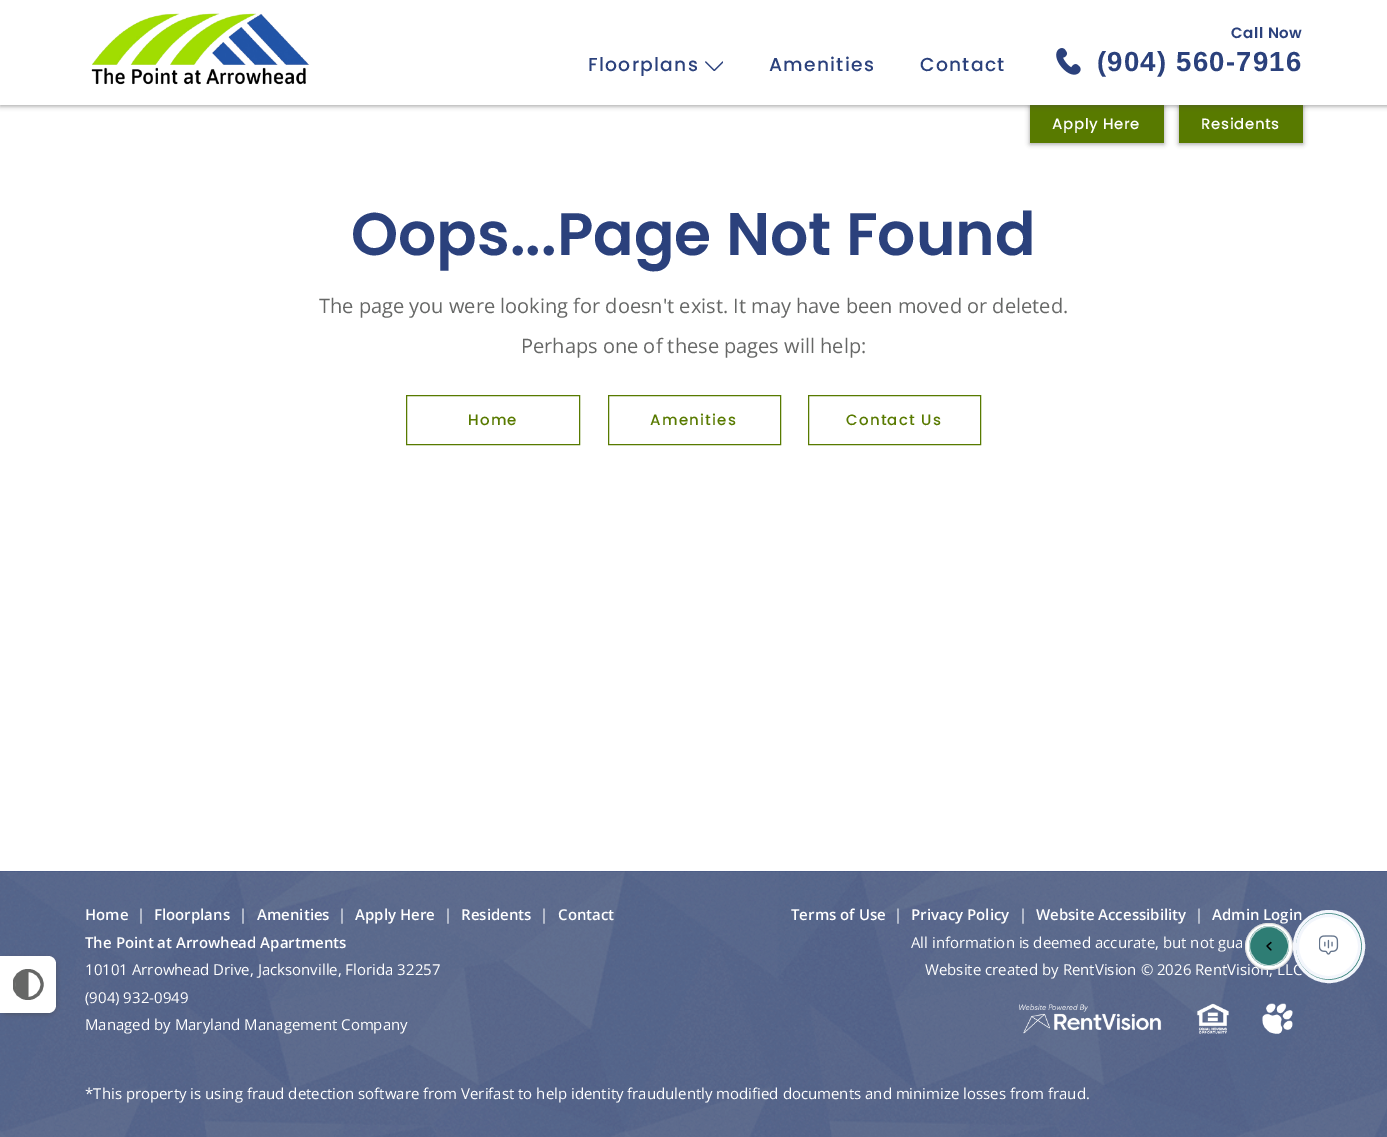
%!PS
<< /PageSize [1387 1137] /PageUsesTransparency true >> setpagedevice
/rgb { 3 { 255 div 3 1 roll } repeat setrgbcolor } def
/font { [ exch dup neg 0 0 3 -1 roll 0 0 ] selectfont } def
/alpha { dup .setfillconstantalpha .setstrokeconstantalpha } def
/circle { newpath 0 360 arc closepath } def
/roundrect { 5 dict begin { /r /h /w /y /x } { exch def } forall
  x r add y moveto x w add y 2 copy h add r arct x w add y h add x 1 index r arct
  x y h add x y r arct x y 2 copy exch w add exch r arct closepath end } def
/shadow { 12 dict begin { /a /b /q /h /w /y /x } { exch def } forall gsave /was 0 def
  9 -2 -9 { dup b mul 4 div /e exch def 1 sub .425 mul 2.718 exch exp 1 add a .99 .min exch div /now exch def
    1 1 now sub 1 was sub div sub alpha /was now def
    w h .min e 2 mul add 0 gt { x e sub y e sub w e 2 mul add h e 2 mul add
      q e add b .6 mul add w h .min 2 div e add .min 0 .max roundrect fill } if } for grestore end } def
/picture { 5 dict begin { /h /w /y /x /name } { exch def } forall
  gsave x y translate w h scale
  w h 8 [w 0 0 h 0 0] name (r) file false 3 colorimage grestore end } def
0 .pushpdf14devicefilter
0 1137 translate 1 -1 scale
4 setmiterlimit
255 255 255 rgb
0 0 1387 1137 rectfill
68 68 68 rgb
1030 106 134 38 0 2.5 0.5 shadow
88 122 0 rgb
1030 105 134 38 rectfill
68 68 68 rgb
1179 106 124 38 0 2.5 0.5 shadow
88 122 0 rgb
1179 105 124 38 rectfill
68 68 68 rgb
0 1 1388 105 0 2.5 0.5 shadow
255 255 255 rgb
0 0 1387 105 rectfill
(img/1.rgb) 91 13 219 72 picture
(img/2.rgb) 705 61 18 10 picture
(img/3.rgb) 1056 48 25 27 picture
88 122 0 rgb
406.5 395.5 173 49 rectstroke
608.5 395.5 172 49 rectstroke
808.5 395.5 172 49 rectstroke
43 65 124 rgb
0 871 1387 266 rectfill
(img/4.rgb) 0 871 1387 266 picture
68 68 68 rgb
0 958 56 56 8 2.5 0.5 shadow
255 255 255 rgb
0 956 moveto 48 956 lineto 52.5 956 56 959.5 56 964 curveto 56 1005 lineto 56 1009.5 52.5 1013 48 1013 curveto 0 1013 lineto closepath fill
gsave
13 969 31 31 rectclip
102 103 102 rgb
3.1 setlinewidth
28 984.5 14 circle stroke
grestore
102 103 102 rgb
28.5 971 moveto 11 971 11 997.5 28.5 997.5 curveto closepath fill
(img/5.rgb) 1019 1004 143 30 picture
(img/6.rgb) 1197 1003 32 31 picture
(img/7.rgb) 1262 1003 31 31 picture
255 255 255 rgb
1245 923 48 47 23.5 roundrect fill
/Poppins-Medium 18.75 font
43 65 124 rgb
588 71 moveto 1.25 0 (Floorplans) ashow
769 71 moveto 1.25 0 (Amenities) ashow
920 71 moveto 1.25 0 (Contact) ashow
/Poppins-SemiBold 15 font
1231 38 moveto 0.6 0 (Call Now) ashow
/LiberationSans-Bold 27.5 font
1097 71 moveto 1.25 0 (\(904\) 560-7916) ashow
/Poppins-Medium 15 font
255 255 255 rgb
1052 129 moveto 0.6 0 (Apply Here) ashow
1201 129 moveto 0.6 0 (Residents) ashow
/Poppins-SemiBold 60 font
43 65 124 rgb
351 255 moveto (Oops...Page Not Found) show
/OpenSans-Regular 20 font
102 103 102 rgb
319 313 moveto (The page you were looking for doesn't exist. It may have been moved or deleted.) show
521 353 moveto (Perhaps one of these pages will help:) show
/Poppins-Medium 15 font
88 122 0 rgb
468 425 moveto 1.25 0 (Home) ashow
650 425 moveto 1.25 0 (Amenities) ashow
846 425 moveto 1.25 0 (Contact Us) ashow
/OpenSans-SemiBold 15 font
255 255 255 rgb
85 920 moveto (Home) show
/OpenSans-Regular 15 font
137 920 moveto (|) show
/OpenSans-SemiBold 15 font
154 920 moveto (Floorplans) show
/OpenSans-Regular 15 font
239 920 moveto (|) show
/OpenSans-SemiBold 15 font
257 920 moveto (Amenities) show
/OpenSans-Regular 15 font
338 920 moveto (|) show
/OpenSans-SemiBold 15 font
355 920 moveto (Apply Here) show
/OpenSans-Regular 15 font
444 920 moveto (|) show
/OpenSans-SemiBold 15 font
461 920 moveto (Residents) show
/OpenSans-Regular 15 font
540 920 moveto (|) show
/OpenSans-SemiBold 15 font
558 920 moveto (Contact) show
85 948 moveto (The Point at Arrowhead Apartments) show
/OpenSans-Regular 15 font
[
  [(10101 Arrowhead Drive, Jacksonville, Florida 32257) 85 975]
  [(\(904\) 932-0949) 85 1003]
  [(Managed by Maryland Management Company) 85 1030]
] { aload pop moveto show } forall
/OpenSans-SemiBold 15 font
791 920 moveto (Terms of Use) show
/OpenSans-Regular 15 font
894 920 moveto (|) show
/OpenSans-SemiBold 15 font
911 920 moveto (Privacy Policy) show
/OpenSans-Regular 15 font
1019 920 moveto (|) show
/OpenSans-SemiBold 15 font
1036 920 moveto (Website Accessibility) show
/OpenSans-Regular 15 font
1195 920 moveto (|) show
/OpenSans-SemiBold 15 font
1212 920 moveto (Admin Login) show
/OpenSans-Regular 15 font
[
  [(All information is deemed accurate, but not gua) 911 948]
  [(Website created by RentVision © 2026 RentVision, LLC) 925 975]
  [(*This property is using fraud detection software from Verifast to help identity fraudulently modified documents and minimize losses from fraud.) 85 1099]
] { aload pop moveto show } forall
0.2 alpha
95 95 95 rgb
1245.5 923.5 47 46 23 roundrect stroke
1 alpha
46 125 116 rgb
1269 946 20 circle fill
0.7 alpha
255 255 255 rgb
1269 946 19.5 circle stroke
1 alpha
0 0 0 rgb
1.2 setlinewidth
1 setlinecap
1 setlinejoin
1271 950 moveto 1267 946 lineto 1271 942.5 lineto stroke
46 125 116 rgb
1294.5 911.5 69 70 34.5 roundrect gsave fill grestore
243 246 252 rgb
3 setlinewidth
0 setlinecap
0 setlinejoin
stroke
255 255 255 rgb
1328.5 946.5 31 circle gsave fill grestore
243 246 252 rgb
stroke
(img/8.rgb) 1319 935 20 20 picture
.poppdf14devicefilter showpage
